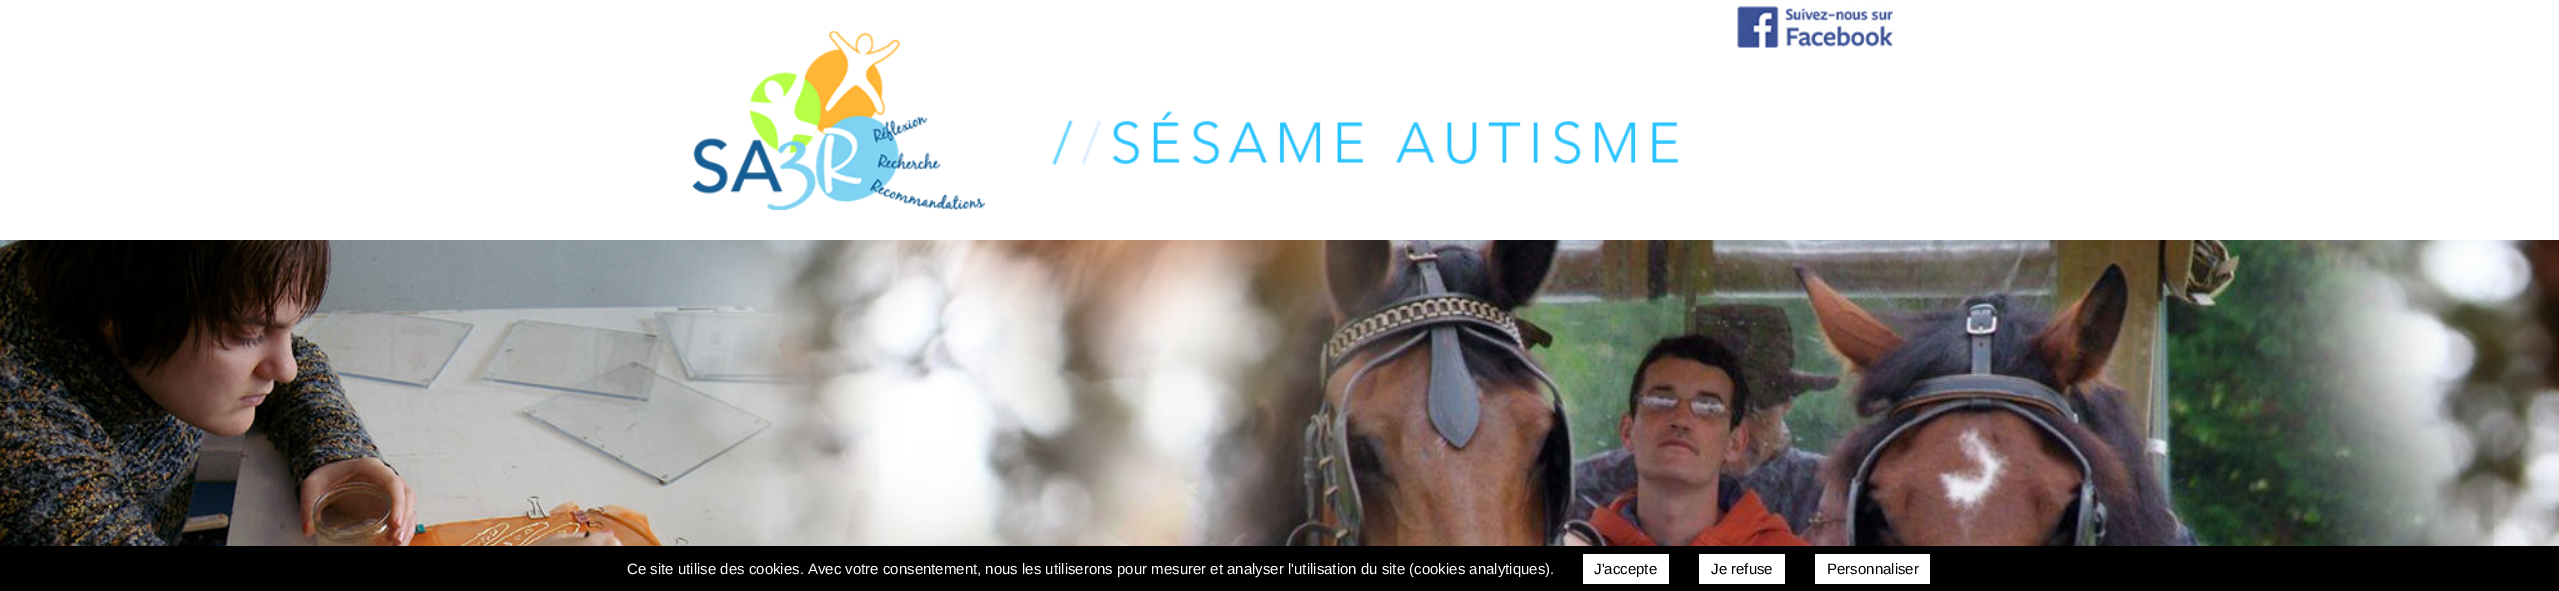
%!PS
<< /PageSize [2559 591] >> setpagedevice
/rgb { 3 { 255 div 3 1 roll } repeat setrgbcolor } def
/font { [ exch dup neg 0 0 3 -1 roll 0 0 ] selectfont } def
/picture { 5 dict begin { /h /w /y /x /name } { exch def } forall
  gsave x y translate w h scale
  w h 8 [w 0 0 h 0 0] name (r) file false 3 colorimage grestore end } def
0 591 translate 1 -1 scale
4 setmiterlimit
255 255 255 rgb
0 0 2559 591 rectfill
(img/1.rgb) 692 31 987 179 picture
(img/2.rgb) 1737 6 156 42 picture
(img/3.rgb) 0 240 2559 306 picture
[
  [0 546 2559 45 0 0 0]
  [1583 554 86 30 255 255 255]
  [1699 554 86 30 255 255 255]
  [1815 554 115 30 255 255 255]
] { aload pop rgb rectfill } forall
/LiberationSans-Regular 15 font
627 574 moveto (Ce site utilise des cookies. Avec votre consentement, nous les utiliserons pour mesurer et analyser l'utilisation du site \(cookies analytiques\).) show
0 0 0 rgb
[
  [(J'accepte) 1594 574]
  [(Je refuse) 1711 574]
  [(Personnaliser) 1827 574]
] { aload pop moveto show } forall
showpage
